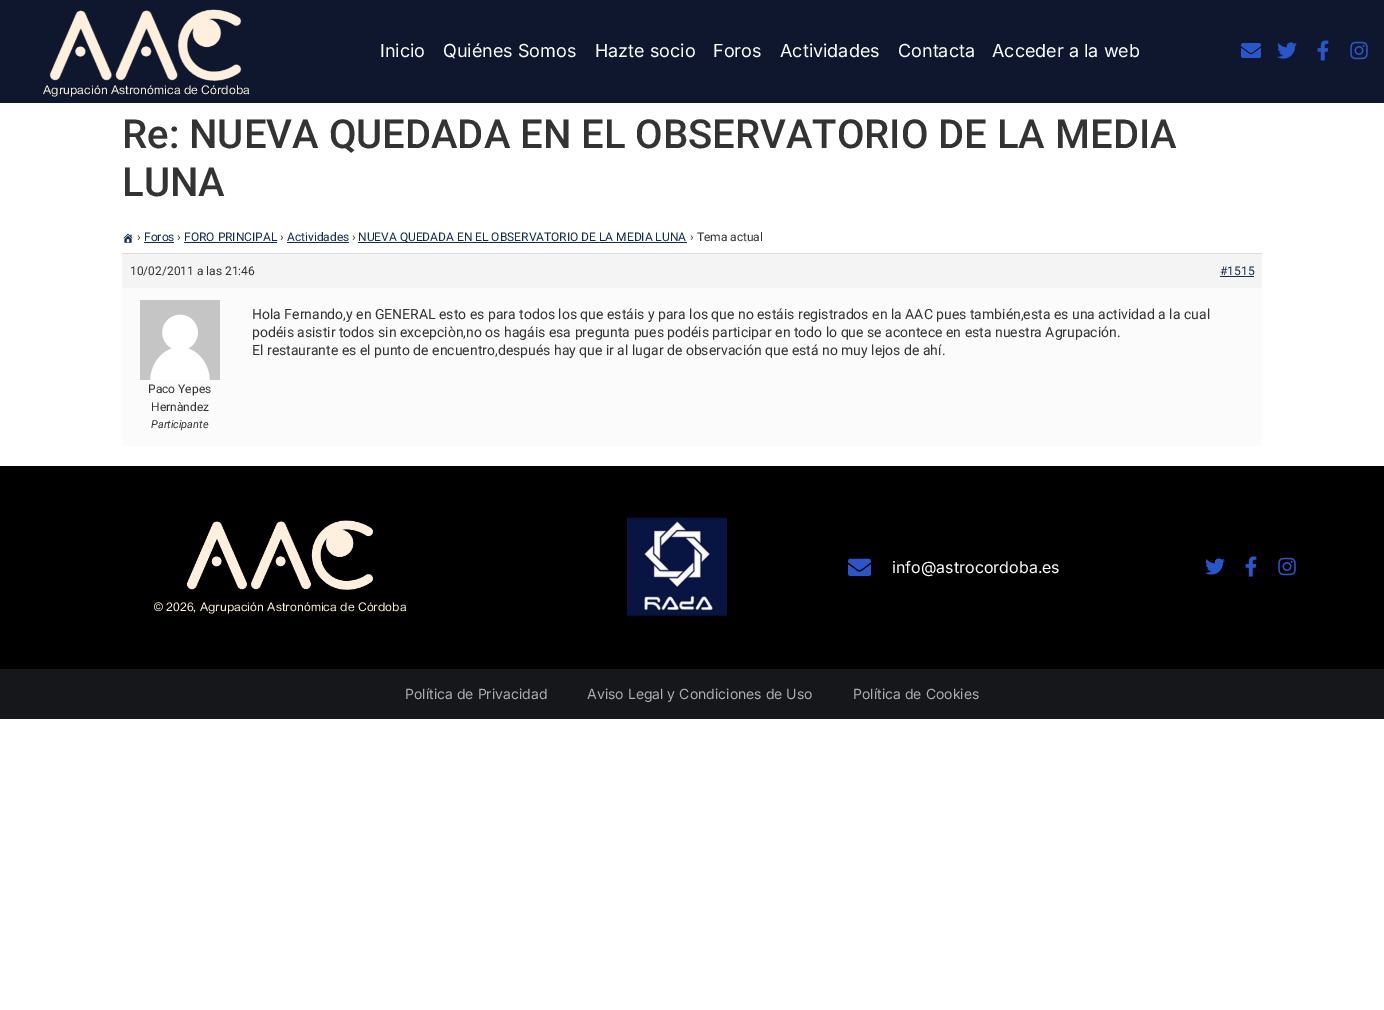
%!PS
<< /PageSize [1384 1010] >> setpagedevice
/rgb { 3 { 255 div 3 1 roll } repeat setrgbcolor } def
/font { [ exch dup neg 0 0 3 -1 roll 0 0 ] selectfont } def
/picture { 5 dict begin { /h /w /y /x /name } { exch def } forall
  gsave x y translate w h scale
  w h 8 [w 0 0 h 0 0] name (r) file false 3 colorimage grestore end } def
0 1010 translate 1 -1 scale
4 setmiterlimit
255 255 255 rgb
0 0 1384 1010 rectfill
14 23 45 rgb
0 0 1384 103 rectfill
(img/1.rgb) 1241 43 20 15 picture
(img/2.rgb) 1277 42 20 17 picture
(img/3.rgb) 1317 40 12 21 picture
(img/4.rgb) 1350 41 18 19 picture
(img/5.rgb) 49 9 193 73 picture
(img/6.rgb) 123 233 10 10 picture
[
  [144 242 30 1 19 44 78]
  [184 242 93 1 19 44 78]
  [287 242 62 1 19 44 78]
  [358 242 329 1 19 44 78]
  [122 254 1140 34 244 244 244]
  [122 253 1140 1 221 221 221]
  [1220 276 34 1 19 44 78]
  [122 288 1140 158 251 251 251]
] { aload pop rgb rectfill } forall
(img/7.rgb) 140 300 80 80 picture
0 0 0 rgb
0 466 1384 203 rectfill
(img/8.rgb) 627 517 100 99 picture
(img/9.rgb) 848 558 23 18 picture
(img/10.rgb) 1205 558 20 17 picture
(img/11.rgb) 1245 556 12 21 picture
(img/12.rgb) 1278 557 18 19 picture
(img/13.rgb) 186 520 188 70 picture
21 23 27 rgb
0 669 1384 50 rectfill
/Inter-Regular 18 font
255 255 255 rgb
[
  [(Inicio) 380 57]
  [(Quiénes Somos) 443 57]
  [(Hazte socio) 595 57]
  [(Foros) 713 57]
  [(Actividades) 780 57]
  [(Contacta) 898 57]
  [(Acceder a la web) 992 57]
] { aload pop moveto show } forall
/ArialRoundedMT-Regular 12 font
255 242 222 rgb
43 94 moveto (Agrupación Astronómica de Córdoba) show
/Roboto-Medium 40 font
51 51 51 rgb
122 148 moveto (Re: NUEVA QUEDADA EN EL OBSERVATORIO DE LA MEDIA) show
122 196 moveto (LUNA) show
/Roboto-Regular 12 font
137 241 moveto (›) show
19 44 78 rgb
144 241 moveto (Foros) show
51 51 51 rgb
177 241 moveto (›) show
19 44 78 rgb
184 241 moveto (FORO PRINCIPAL) show
51 51 51 rgb
280 241 moveto (›) show
19 44 78 rgb
287 241 moveto (Actividades) show
51 51 51 rgb
352 241 moveto (›) show
19 44 78 rgb
358 241 moveto (NUEVA QUEDADA EN EL OBSERVATORIO DE LA MEDIA LUNA) show
51 51 51 rgb
690 241 moveto (› Tema actual) show
130 275 moveto (10/02/2011 a las 21:46) show
19 44 78 rgb
1220 275 moveto (#1515) show
/Roboto-Regular 14 font
51 51 51 rgb
[
  [(Hola Fernando,y en GENERAL esto es para todos los que estáis y para los que no estáis registrados en la AAC pues también,esta es una actividad a la cual) 252 319]
  [(podéis asistir todos sin excepciòn,no os hagáis esa pregunta pues podéis participar en todo lo que se acontece en esta nuestra Agrupación.) 252 337]
  [(El restaurante es el punto de encuentro,después hay que ir al lugar de observación que está no muy lejos de ahí.) 252 355]
] { aload pop moveto show } forall
/Roboto-Regular 12 font
148 393 moveto (Paco Yepes) show
151 411 moveto (Hernàndez) show
/Roboto-Italic 11 font
151 428 moveto (Participante) show
/Inter-Regular 16 font
255 255 255 rgb
892 573 moveto (info@astrocordoba.es) show
/ArialRoundedMT-Regular 12 font
255 242 222 rgb
154 611 moveto (© 2026, Agrupación Astronómica de Córdoba) show
/Inter-Regular 14 font
173 173 173 rgb
[
  [(Política de Privacidad) 405 699]
  [(Aviso Legal y Condiciones de Uso) 587 699]
  [(Política de Cookies) 853 699]
] { aload pop moveto show } forall
showpage
